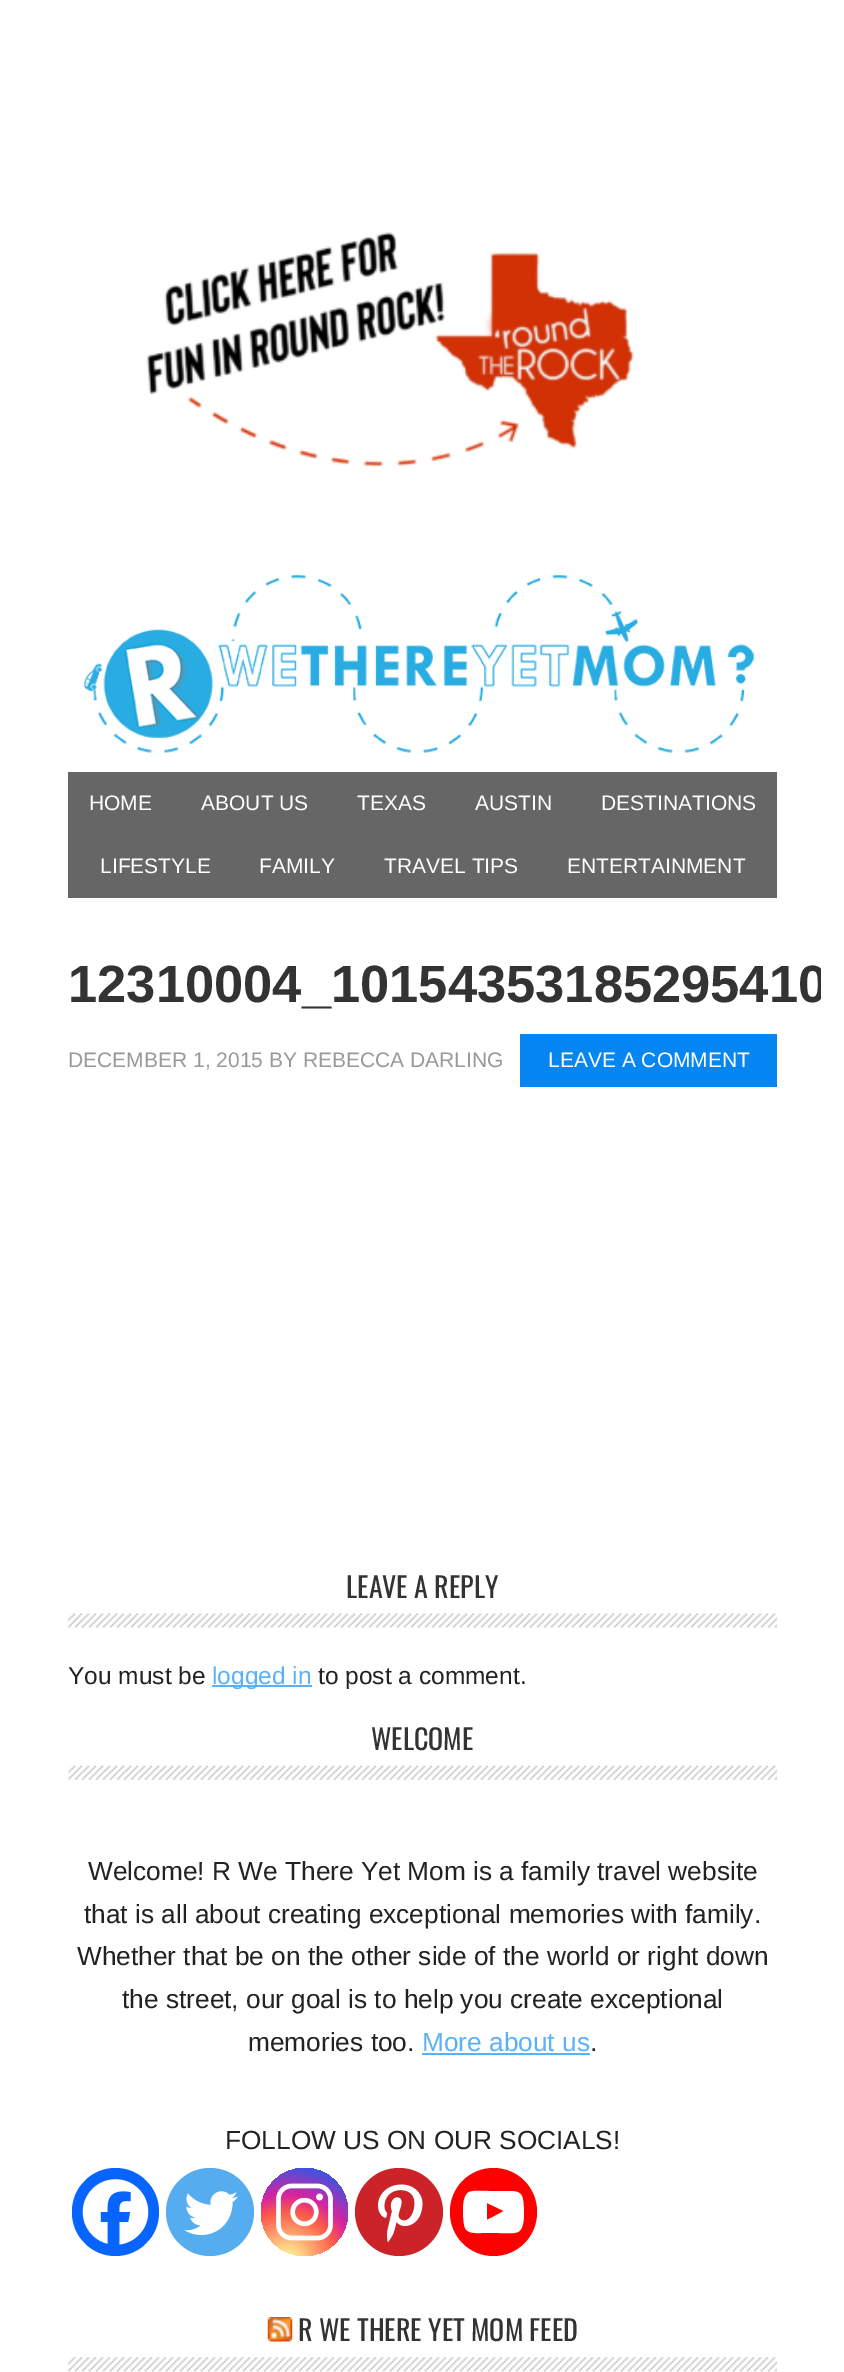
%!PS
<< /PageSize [844 2372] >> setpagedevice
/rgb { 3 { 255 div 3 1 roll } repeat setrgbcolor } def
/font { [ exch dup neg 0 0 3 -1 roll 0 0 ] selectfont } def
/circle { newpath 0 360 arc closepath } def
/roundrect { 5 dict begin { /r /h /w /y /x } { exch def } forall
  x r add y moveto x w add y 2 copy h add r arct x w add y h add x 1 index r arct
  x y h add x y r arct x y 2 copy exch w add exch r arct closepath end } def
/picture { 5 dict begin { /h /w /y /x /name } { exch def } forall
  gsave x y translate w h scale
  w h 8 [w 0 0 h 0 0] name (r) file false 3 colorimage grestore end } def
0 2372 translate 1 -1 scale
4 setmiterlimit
255 255 255 rgb
0 0 844 2372 rectfill
(img/1.rgb) 146 232 488 236 picture
(img/2.rgb) 84 574 671 179 picture
102 102 102 rgb
68 772 709 126 rectfill
6 134 242 rgb
520 1034 257 53 rectfill
(img/3.rgb) 68 1613 709 15 picture
91 177 249 rgb
212 1685 100 2 rectfill
(img/4.rgb) 68 1765 709 15 picture
422 2053 168 2 rectfill
7 101 254 rgb
72 2168 87 88 43.5 roundrect fill
(img/5.rgb) 82 2179 67 66 picture
85 172 238 rgb
210 2212 44 circle fill
(img/6.rgb) 184 2191 54 44 picture
gsave 261 2168 87 88 43.5 roundrect clip newpath 287 2262 translate 112 112 scale
<< /ShadingType 3 /ColorSpace /DeviceRGB /Coords [0 0 0 0 0 1] /Extend [true true] /Function << /FunctionType 3 /Domain [0 1] /Functions [<< /FunctionType 2 /Domain [0 1] /C0 [0.992 0.957 0.592] /C1 [0.992 0.957 0.592] /N 1 >> << /FunctionType 2 /Domain [0 1] /C0 [0.992 0.957 0.592] /C1 [0.992 0.349 0.286] /N 1 >> << /FunctionType 2 /Domain [0 1] /C0 [0.992 0.349 0.286] /C1 [0.839 0.141 0.624] /N 1 >> << /FunctionType 2 /Domain [0 1] /C0 [0.839 0.141 0.624] /C1 [0.157 0.353 0.922] /N 1 >> << /FunctionType 2 /Domain [0 1] /C0 [0.157 0.353 0.922] /C1 [0.157 0.353 0.922] /N 1 >>] /Bounds [0.05 0.45 0.6 0.9] /Encode [0 1 0 1 0 1 0 1 0 1] >> >> shfill grestore
(img/7.rgb) 276 2183 57 58 picture
204 35 41 rgb
399 2212 44 circle fill
(img/8.rgb) 378 2184 45 58 picture
255 0 0 rgb
450 2168 87 88 43.5 roundrect fill
255 255 255 rgb
523 2200 moveto 522 2191 515 2191 508 2191 curveto 489 2191 lineto 484 2191 474 2190 469 2192 curveto 461 2196 463 2217 464 2224 curveto 465 2234 474 2233 482 2233 curveto 498 2233 lineto 503 2233 513 2234 518 2232 curveto 526 2228 524 2207 523 2200 curveto closepath 487 2220 moveto 487 2203 lineto 504 2211 lineto closepath fill
(img/9.rgb) 68 2357 709 15 picture
(img/10.rgb) 267 2317 26 25 picture
/LiberationSans-Regular 21 font
[
  [(HOME) 89 810]
  [(ABOUT US) 201 810]
  [(TEXAS) 357 810]
  [(AUSTIN) 475 810]
  [(DESTINATIONS) 601 810]
  [(LIFESTYLE) 100 873]
  [(FAMILY) 259 873]
  [(TRAVEL TIPS) 384 873]
  [(ENTERTAINMENT) 567 873]
] { aload pop moveto show } forall
gsave
25 56 796 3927 rectclip
/LiberationSans-Bold 52.5 font
51 51 51 rgb
68 1002 moveto (12310004_10154353185295410) show
grestore
153 153 153 rgb
68 1067 moveto (DECEMBER 1, 2015 BY REBECCA DARLING) show
255 255 255 rgb
548 1067 moveto (LEAVE A COMMENT) show
/Oswald-Regular 28 font
51 51 51 rgb
346 1598 moveto (LEAVE A REPLY) show
/LiberationSans-Regular 24.5 font
34 34 34 rgb
68 1684 moveto (You must be) show
91 177 249 rgb
212 1684 moveto (logged in) show
34 34 34 rgb
318 1684 moveto (to post a comment.) show
/Oswald-Regular 28 font
51 51 51 rgb
371 1750 moveto (WELCOME) show
/LiberationSans-Regular 26.25 font
34 34 34 rgb
[
  [(Welcome! R We There Yet Mom is a family travel website) 88 1880]
  [(that is all about creating exceptional memories with family.) 84 1923]
  [(Whether that be on the other side of the world or right down) 77 1965]
  [(the street, our goal is to help you create exceptional) 122 2008]
  [(memories too.) 248 2051]
] { aload pop moveto show } forall
91 177 249 rgb
422 2051 moveto (More about us) show
34 34 34 rgb
590 2051 moveto (.) show
225 2149 moveto (FOLLOW US ON OUR SOCIALS!) show
/Oswald-Regular 28 font
51 51 51 rgb
298 2341 moveto (R WE THERE YET MOM FEED) show
showpage
